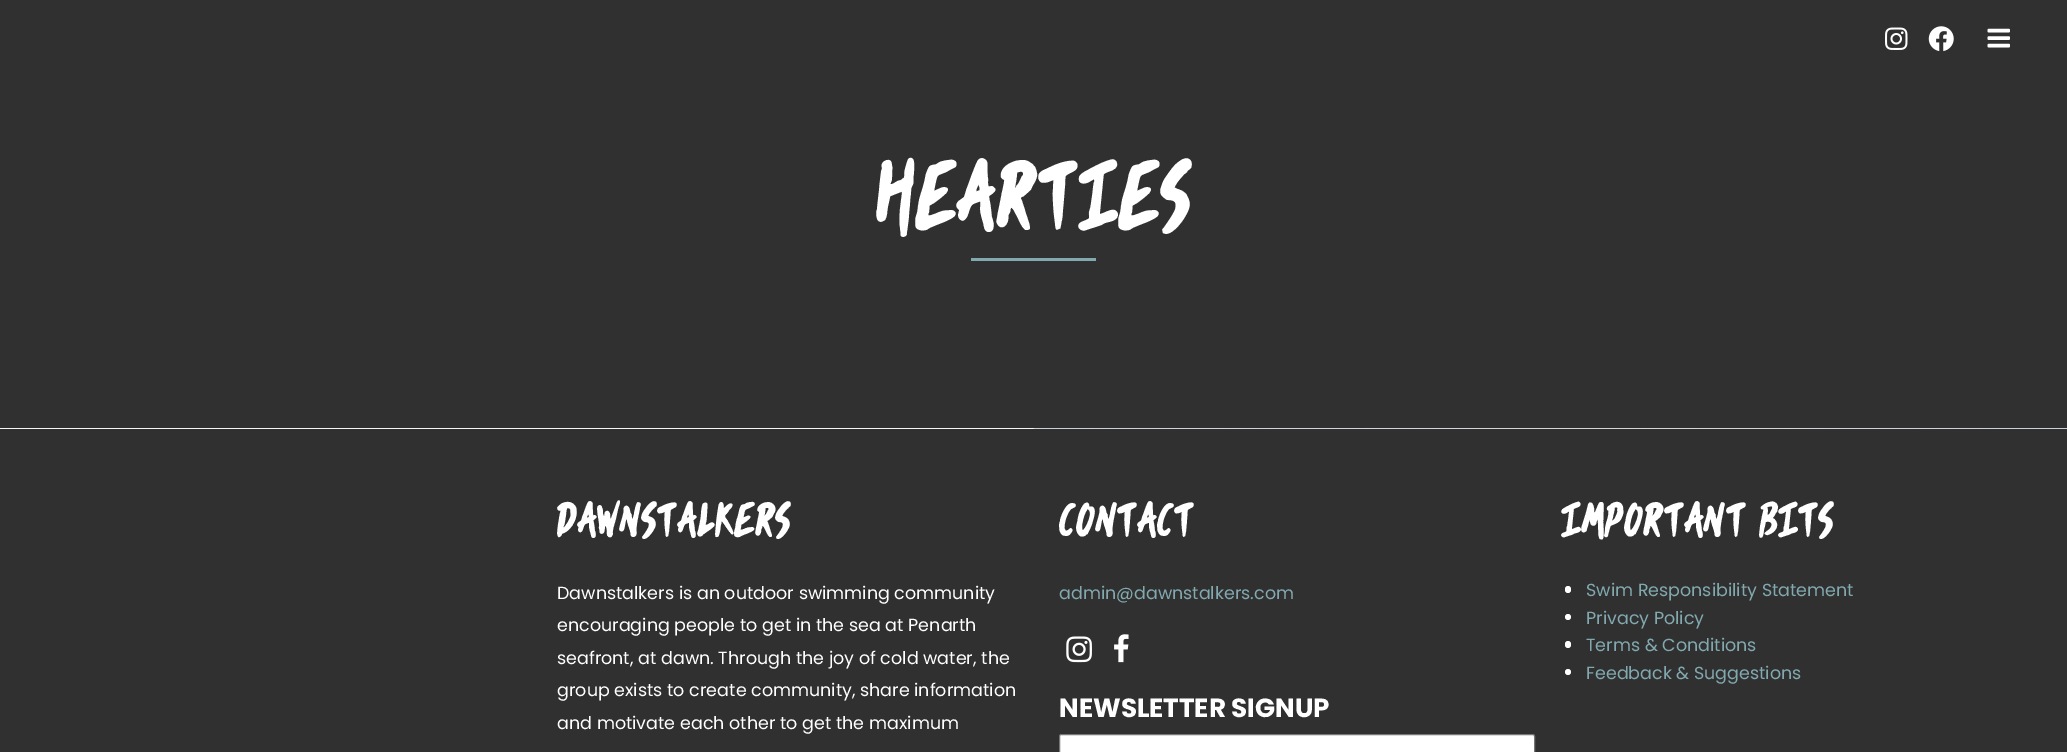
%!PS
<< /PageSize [2067 752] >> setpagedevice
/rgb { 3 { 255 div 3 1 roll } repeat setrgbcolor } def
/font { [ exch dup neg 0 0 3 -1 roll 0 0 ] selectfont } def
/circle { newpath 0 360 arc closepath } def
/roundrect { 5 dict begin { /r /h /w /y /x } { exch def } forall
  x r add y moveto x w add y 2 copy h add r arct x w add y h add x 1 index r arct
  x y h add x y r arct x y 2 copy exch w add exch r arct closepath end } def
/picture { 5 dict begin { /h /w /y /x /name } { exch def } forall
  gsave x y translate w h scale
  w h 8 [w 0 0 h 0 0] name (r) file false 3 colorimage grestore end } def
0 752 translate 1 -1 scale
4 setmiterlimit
246 246 246 rgb
0 0 2067 752 rectfill
48 48 48 rgb
0 0 2067 428 rectfill
(img/1.rgb) 1885 27 23 23 picture
(img/2.rgb) 1928 26 26 26 picture
(img/3.rgb) 1987 28 23 20 picture
130 169 175 rgb
971 258 125 3 rectfill
(img/4.rgb) 1033 428 1034 1 picture
48 48 48 rgb
0 429 2067 323 rectfill
(img/5.rgb) 1066 636 26 27 picture
(img/6.rgb) 1114 634 15 29 picture
255 255 255 rgb
1059.5 734.5 475 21 2 roundrect gsave fill grestore
118 118 118 rgb
stroke
255 255 255 rgb
1565 586 6 7 3 roundrect fill
1568 617 3 circle fill
1565 641 6 7 3 roundrect fill
1568 672 3 circle fill
/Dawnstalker-Regular 90 font
876 222 moveto (HEARTIES) show
/Dawnstalker-Regular 45 font
557 533 moveto (DAWNSTALKERS) show
/Poppins-Regular 17.5 font
[
  [(Dawnstalkers is an outdoor swimming community) 557 599]
  [(encouraging people to get in the sea at Penarth) 557 631]
  [(seafront, at dawn. Through the joy of cold water, the) 557 664]
  [(group exists to create community, share information) 557 696]
  [(and motivate each other to get the maximum) 557 729]
] { aload pop moveto show } forall
/Dawnstalker-Regular 45 font
1059 533 moveto (CONTACT) show
/Poppins-Regular 17.5 font
130 169 175 rgb
1059 599 moveto (admin@dawnstalkers.com) show
/Poppins-Bold 26.25 font
255 255 255 rgb
1059 717 moveto (NEWSLETTER SIGNUP) show
/Dawnstalker-Regular 45 font
1561 533 moveto (IMPORTANT BITS) show
/Poppins-Regular 17.5 font
130 169 175 rgb
[
  [(Swim Responsibility Statement) 1586 596]
  [(Privacy Policy) 1586 624]
  [(Terms & Conditions) 1586 651]
  [(Feedback & Suggestions) 1586 679]
] { aload pop moveto show } forall
showpage
